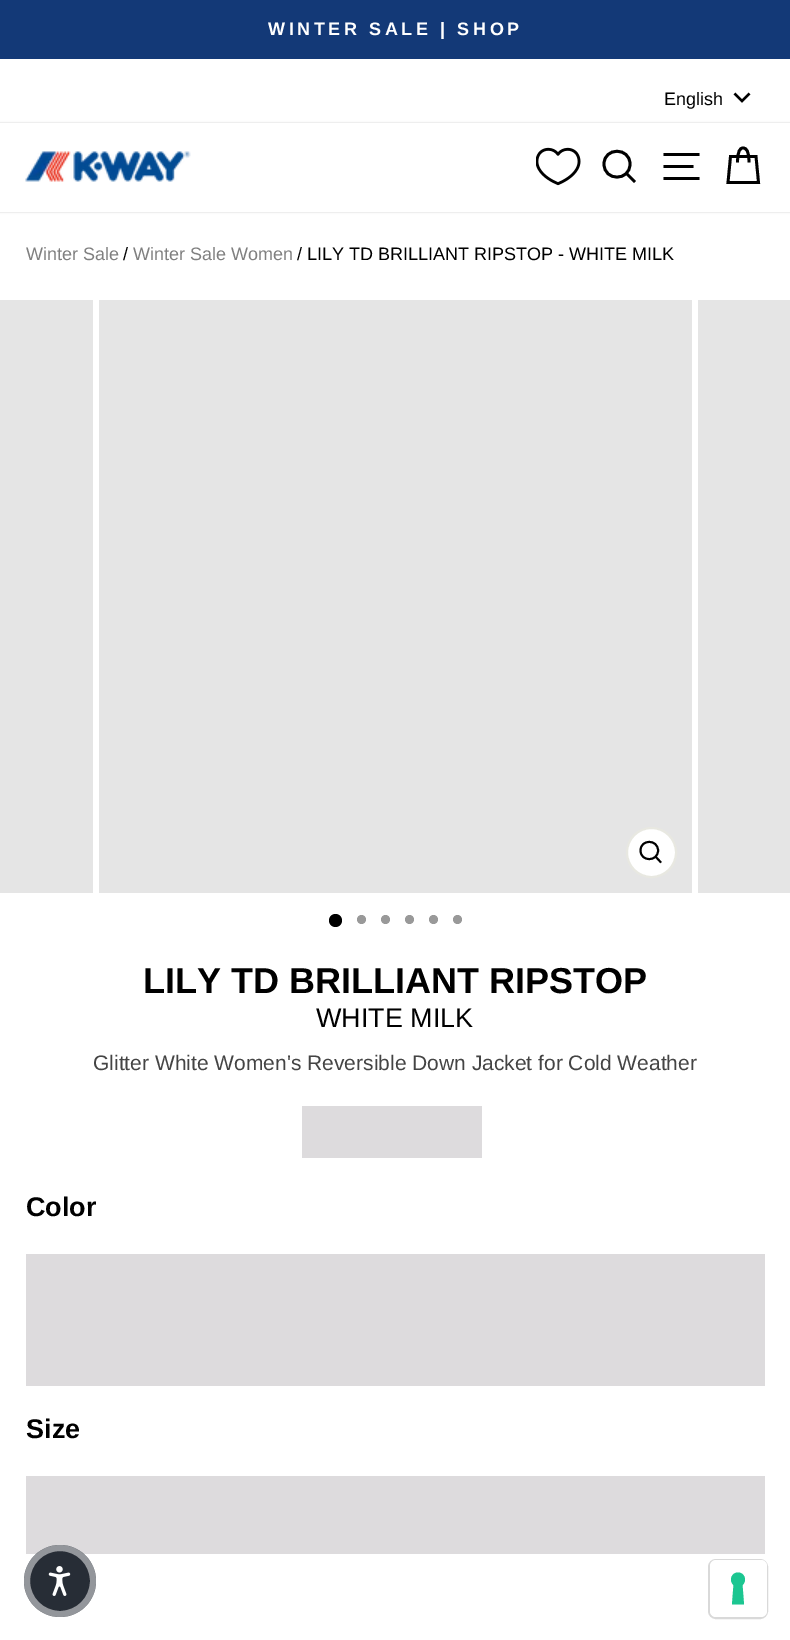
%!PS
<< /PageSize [790 1640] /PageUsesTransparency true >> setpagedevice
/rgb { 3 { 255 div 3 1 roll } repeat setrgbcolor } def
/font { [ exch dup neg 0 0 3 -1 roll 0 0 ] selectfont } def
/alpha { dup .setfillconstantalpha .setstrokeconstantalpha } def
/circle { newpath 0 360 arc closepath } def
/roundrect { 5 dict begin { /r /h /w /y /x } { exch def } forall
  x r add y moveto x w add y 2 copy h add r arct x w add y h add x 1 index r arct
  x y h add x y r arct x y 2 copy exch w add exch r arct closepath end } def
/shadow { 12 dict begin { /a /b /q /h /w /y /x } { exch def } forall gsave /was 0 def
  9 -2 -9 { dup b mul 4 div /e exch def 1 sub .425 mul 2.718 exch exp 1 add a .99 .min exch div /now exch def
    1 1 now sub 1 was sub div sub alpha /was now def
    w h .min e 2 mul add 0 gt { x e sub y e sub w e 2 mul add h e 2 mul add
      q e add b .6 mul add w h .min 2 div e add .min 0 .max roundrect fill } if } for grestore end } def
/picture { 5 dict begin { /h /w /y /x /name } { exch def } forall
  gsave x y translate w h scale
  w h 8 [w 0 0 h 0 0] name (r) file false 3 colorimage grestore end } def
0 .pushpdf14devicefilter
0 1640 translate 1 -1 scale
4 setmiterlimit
255 255 255 rgb
0 0 790 1640 rectfill
19 57 119 rgb
0 0 790 59 rectfill
0 0 0 rgb
2.4 setlinewidth
734.5 93.5 moveto 742 101 lineto 749.5 93.5 lineto stroke
0 123 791 89 0 1 0.2 shadow
255 255 255 rgb
0 123 790 89 rectfill
(img/1.rgb) 25 151 166 31 picture
(img/2.rgb) 536 147 45 39 picture
0 0 0 rgb
2.8 setlinewidth
630 164 moveto 630 181.5 604 181.5 604 164 curveto 604 147 630 147 630 164 curveto closepath 635 182 moveto 626.5 173.5 lineto stroke
663.5 154.5 moveto 699.5 154.5 lineto 663.5 166.5 moveto 693.5 166.5 lineto 663.5 178.5 moveto 699.5 178.5 lineto stroke
737.5 162.5 moveto 737.5 151 740 148 743 148 curveto 746.5 148 749 151 749 162.5 curveto 730.5 156.5 moveto 756 156.5 lineto 758.5 182.5 lineto 728 182.5 lineto closepath stroke
229 229 229 rgb
0 300 93 593 rectfill
99 300 593 593 rectfill
255 255 255 rgb
651.5 852.5 24.5 circle gsave fill grestore
232 232 225 rgb
2 setlinewidth
stroke
0 0 0 rgb
1.9 setlinewidth
658 850.5 moveto 658 862 640.5 862 640.5 850.5 curveto 640.5 839 658 839 658 850.5 curveto closepath 661 862.5 moveto 655.5 856.5 lineto stroke
229 229 229 rgb
698 300 92 593 rectfill
0 0 0 rgb
335.5 920.5 6.5 circle fill
153 153 153 rgb
361.5 919.5 4.5 circle fill
385.5 919.5 4.5 circle fill
409.5 919.5 4.5 circle fill
433.5 919.5 4.5 circle fill
457.5 919.5 4.5 circle fill
[
  [302 1106 180 52 221 219 221]
  [26 1254 739 132 221 219 221]
  [26 1476 739 78 221 219 221]
] { aload pop rgb rectfill } forall
39 45 54 rgb
60 1581 36 circle fill
0.5 alpha
255 255 255 rgb
6 setlinewidth
60 1581 33 circle stroke
1 alpha
(img/3.rgb) 48 1566 23 30 picture
217 217 217 rgb
2 setlinewidth
709 1560 58 58 7 roundrect stroke
255 255 255 rgb
710 1560 57 57 6 roundrect fill
28 198 145 rgb
738 1572.5 moveto 744.5 1572.5 747.5 1580.5 742.5 1585 curveto 744 1604.5 lineto 732 1604.5 lineto 733.5 1585 lineto 728.5 1580.5 731.5 1572.5 738 1572.5 curveto closepath eofill
/LiberationSans-Bold 18 font
255 255 255 rgb
268 35 moveto 3.6 0 (WINTER SALE | SHOP) ashow
/LiberationSans-Regular 18 font
0 0 0 rgb
664 105 moveto (English) show
128 128 128 rgb
26 260 moveto (Winter Sale) show
0 0 0 rgb
123 260 moveto (/) show
128 128 128 rgb
133 260 moveto (Winter Sale Women) show
0 0 0 rgb
297 260 moveto (/) show
307 260 moveto (LILY TD BRILLIANT RIPSTOP - WHITE MILK) show
/LiberationSans-Bold 36 font
143 993 moveto (LILY TD BRILLIANT RIPSTOP) show
/LiberationSans-Regular 27 font
316 1027 moveto (WHITE MILK) show
/LiberationSans-Regular 21 font
68 68 68 rgb
93 1070 moveto (Glitter White Women's Reversible Down Jacket for Cold Weather) show
/LiberationSans-Bold 27 font
0 0 0 rgb
26 1216 moveto (Color) show
26 1438 moveto (Size) show
.poppdf14devicefilter showpage
